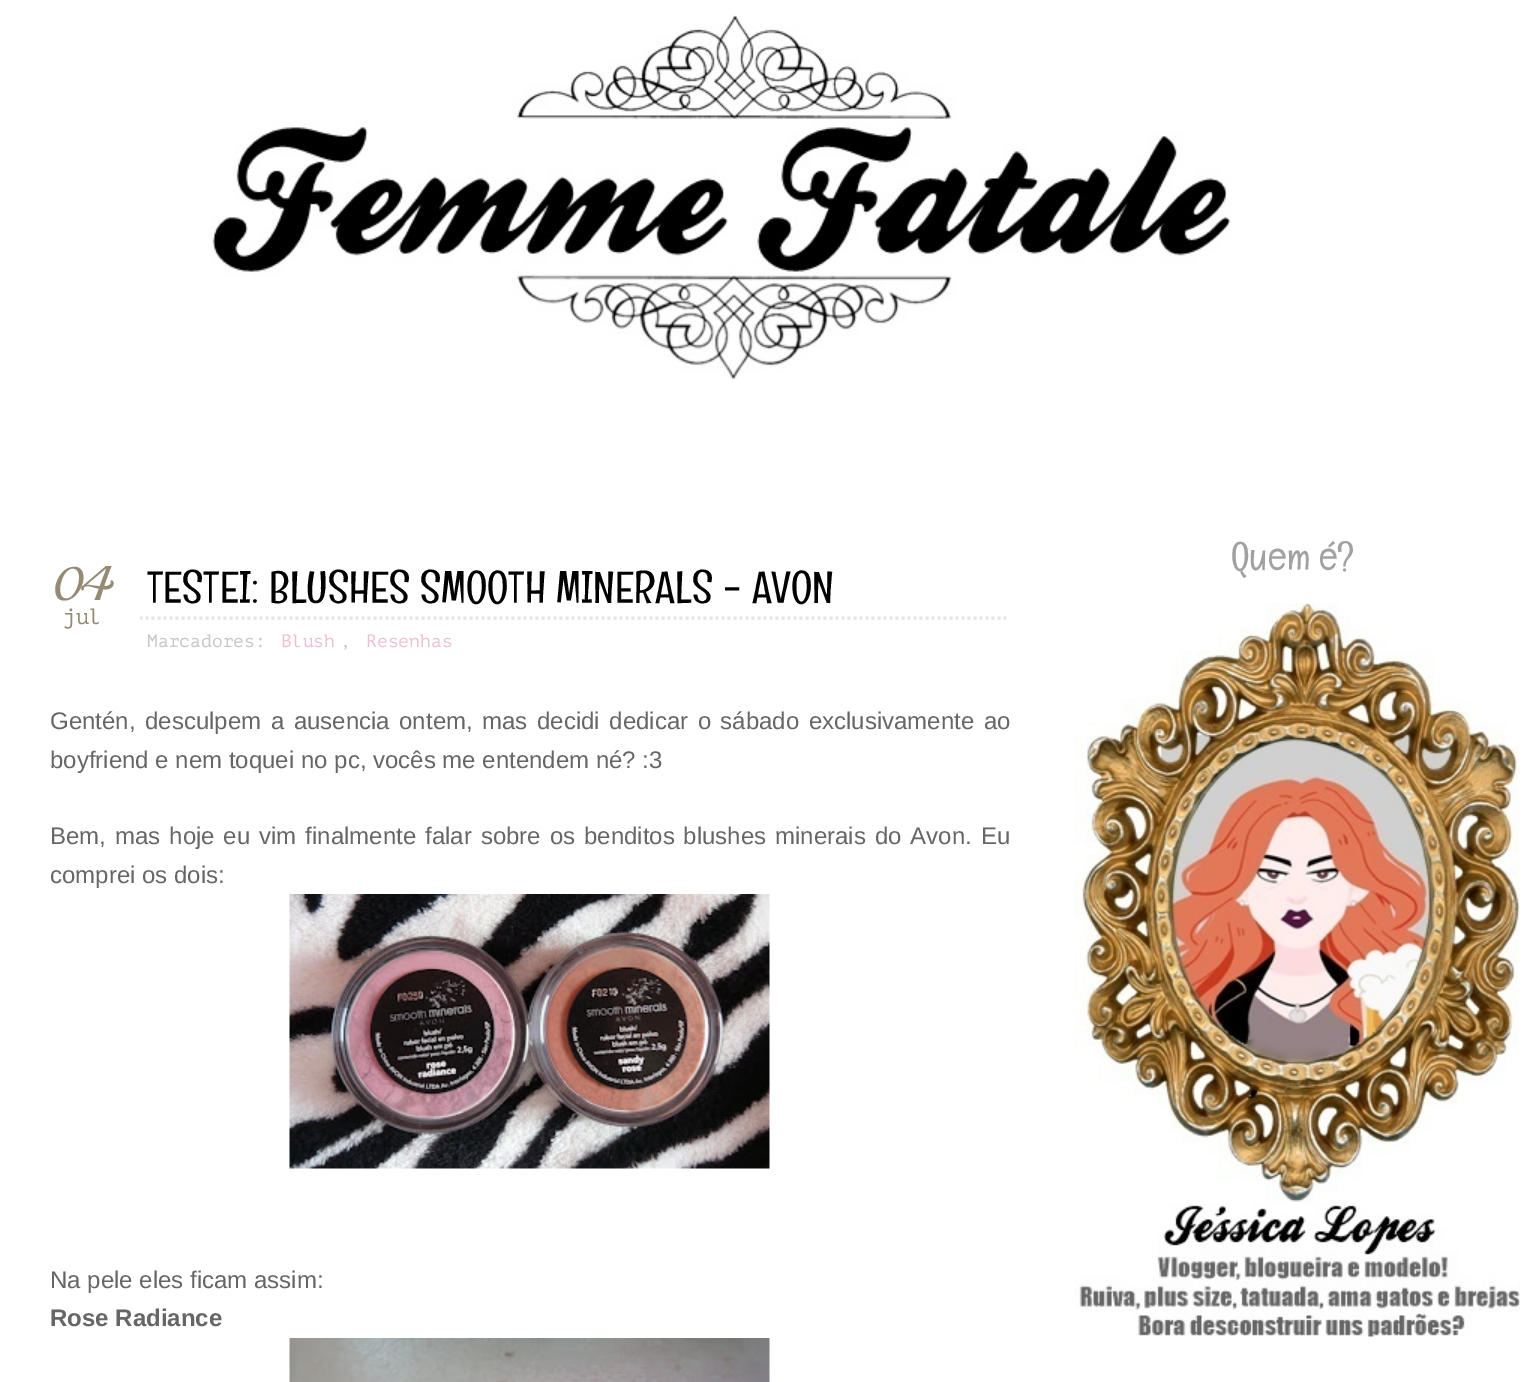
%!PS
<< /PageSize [1539 1382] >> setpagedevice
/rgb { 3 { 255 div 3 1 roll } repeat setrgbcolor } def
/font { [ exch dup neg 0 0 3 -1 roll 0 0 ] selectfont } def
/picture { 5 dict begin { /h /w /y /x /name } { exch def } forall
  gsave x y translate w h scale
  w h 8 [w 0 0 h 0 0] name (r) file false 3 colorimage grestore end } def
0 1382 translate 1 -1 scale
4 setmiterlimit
255 255 255 rgb
0 0 1539 1382 rectfill
(img/1.rgb) 212 15 1019 365 picture
(img/2.rgb) 1074 603 446 734 picture
228 228 228 rgb
3 setlinewidth
[3 3] 0 setdash
49.5 618 moveto 1009.5 618 lineto stroke
255 255 255 rgb
49 616 91 4 rectfill
(img/3.rgb) 289 894 481 275 picture
(img/4.rgb) 289 1338 481 44 picture
/Englebert-Regular 39 font
161 161 161 rgb
1231 570 moveto (Quem é?) show
/Playball-Regular 48 font
149 138 115 rgb
54 600 moveto -2 0 (04) ashow
/PTMono-Regular 22 font
63 624 moveto (jul) show
/Englebert-Regular 45 font
0 0 0 rgb
147 603 moveto (TESTEI: BLUSHES SMOOTH MINERALS - AVON) show
/PTMono-Regular 18 font
198 198 198 rgb
147 647 moveto (Marcadores:) show
238 190 212 rgb
281 647 moveto (Blush) show
198 198 198 rgb
340 647 moveto (,) show
238 190 212 rgb
366 647 moveto (Resenhas) show
/LiberationSans-Regular 24 font
102 102 102 rgb
50 729 moveto 2.9 0 32 (Gentén, desculpem a ausencia ontem, mas decidi dedicar o sábado exclusivamente ao) widthshow
50 768 moveto (boyfriend e nem toquei no pc, vocês me entendem né? :3) show
50 844 moveto 2.25 0 32 (Bem, mas hoje eu vim finalmente falar sobre os benditos blushes minerais do Avon. Eu) widthshow
50 883 moveto (comprei os dois:) show
50 1288 moveto (Na pele eles ficam assim:) show
/LiberationSans-Bold 24 font
50 1326 moveto (Rose Radiance) show
showpage
